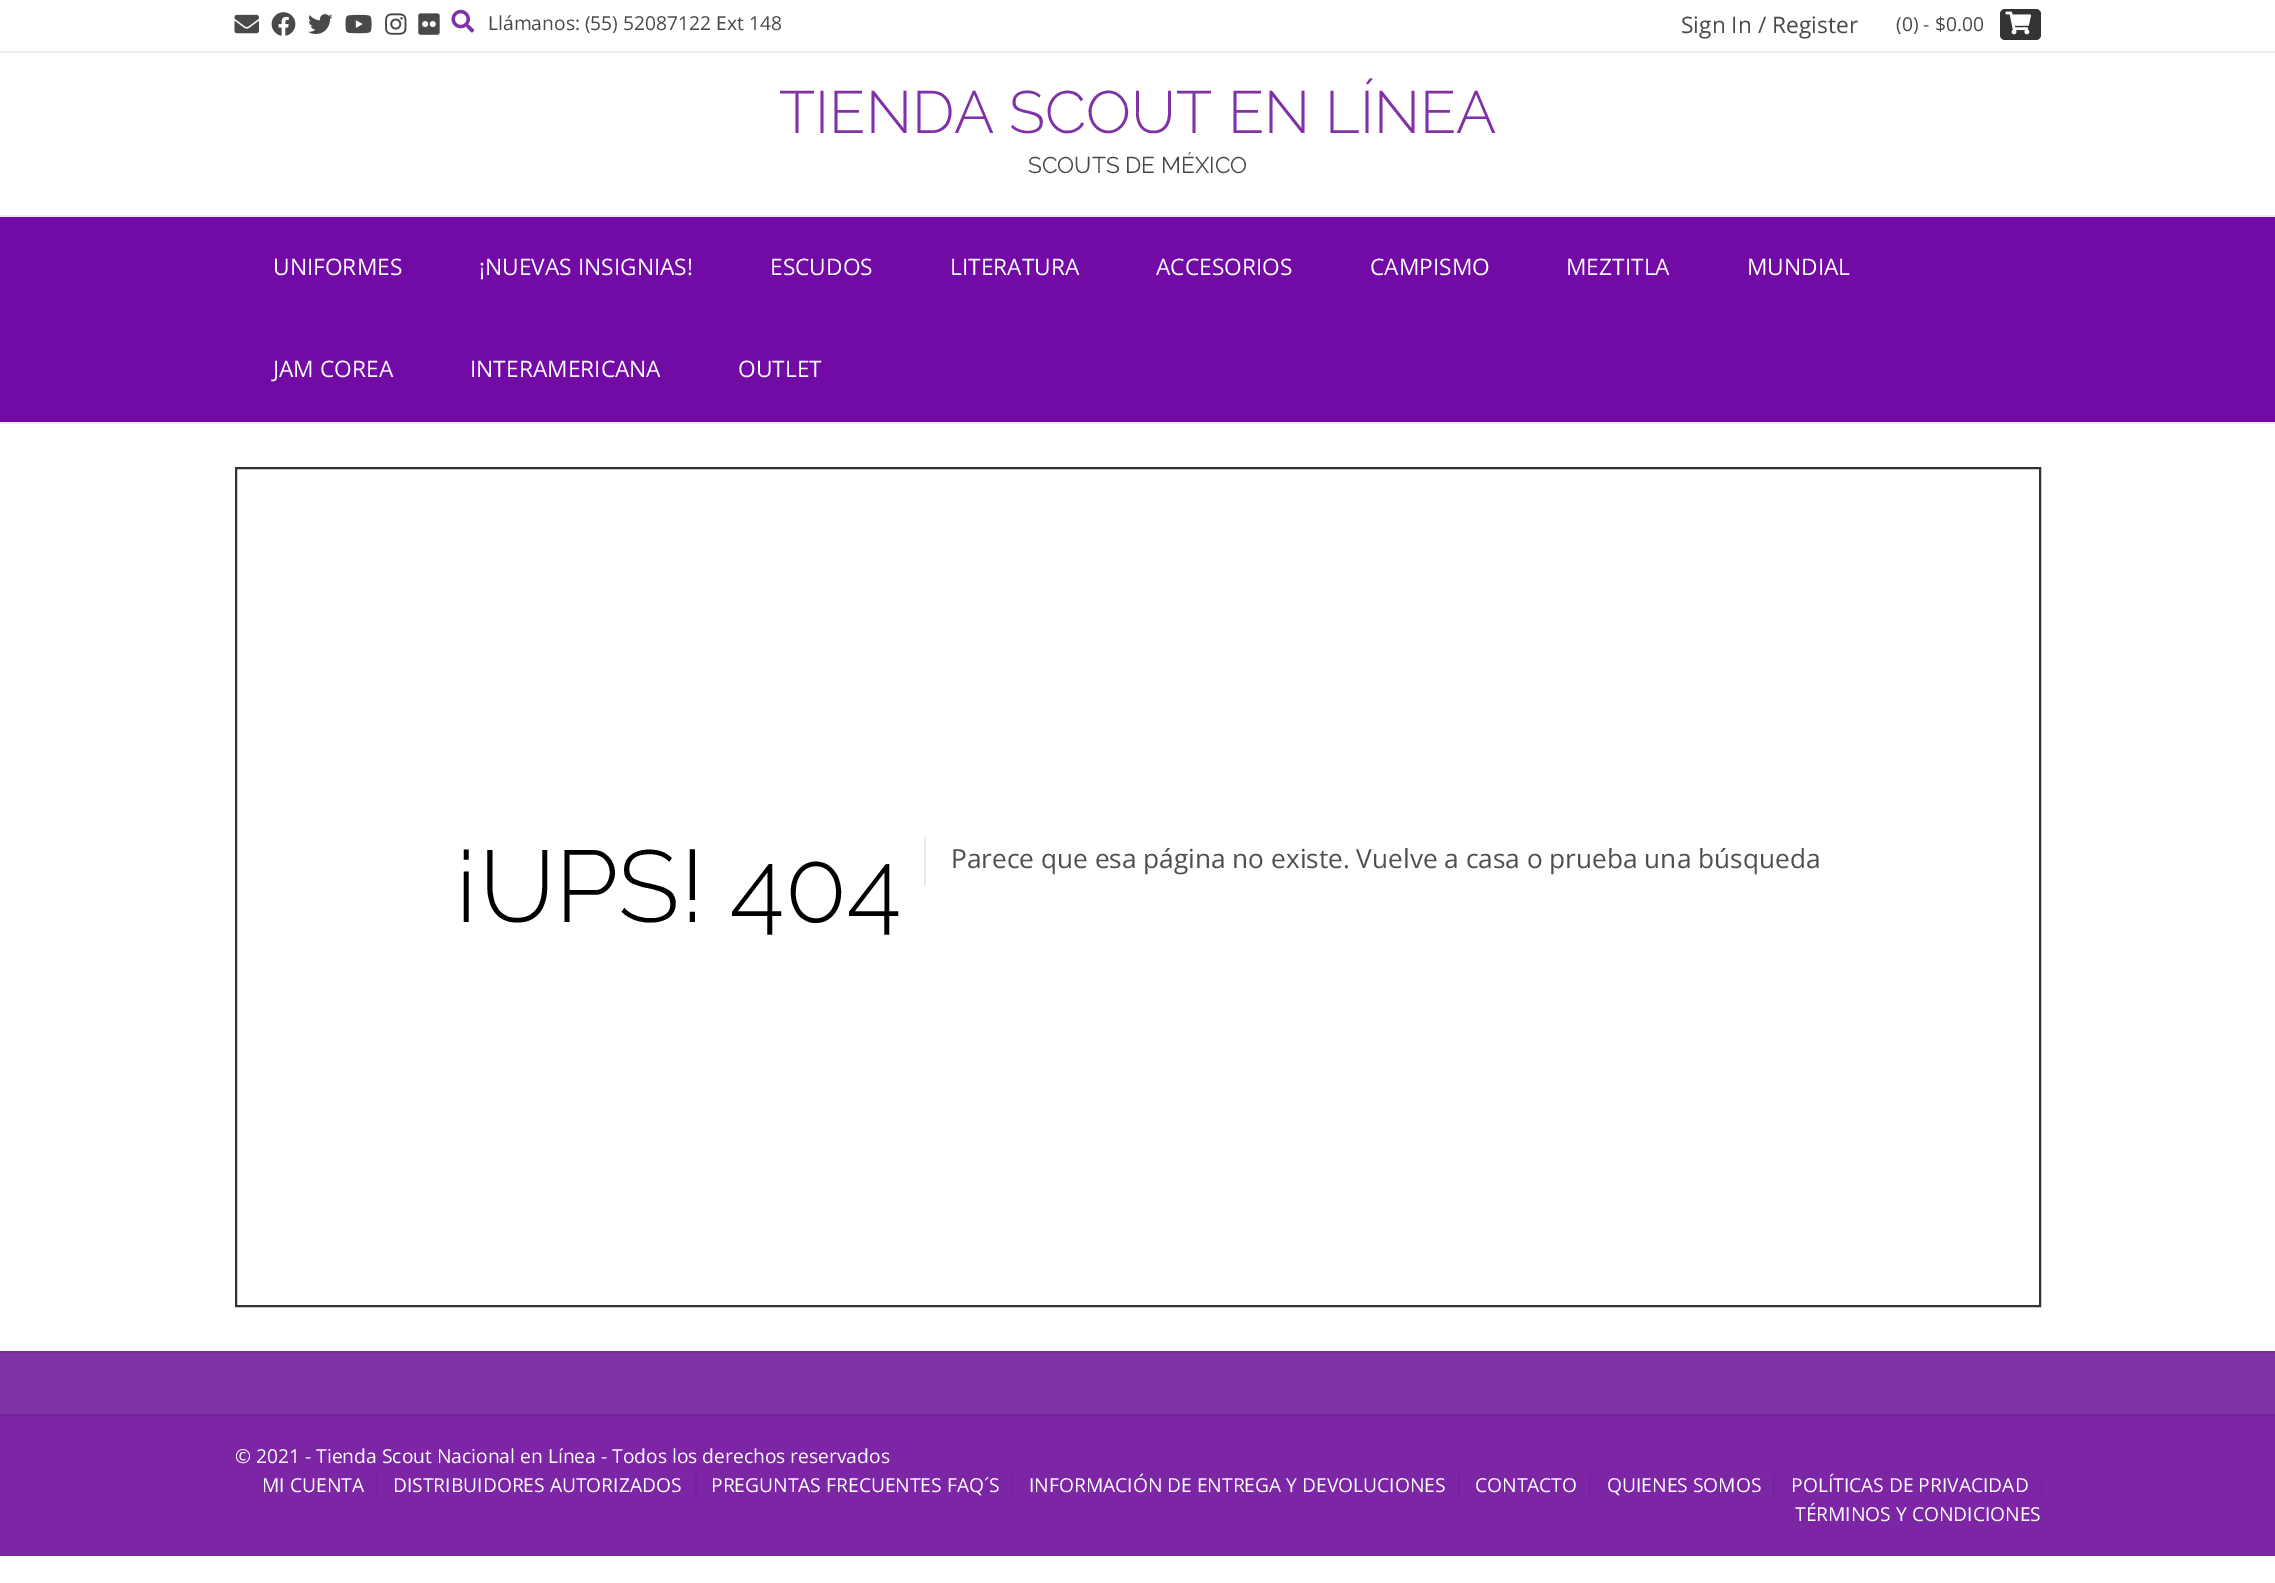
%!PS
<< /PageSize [2275 1583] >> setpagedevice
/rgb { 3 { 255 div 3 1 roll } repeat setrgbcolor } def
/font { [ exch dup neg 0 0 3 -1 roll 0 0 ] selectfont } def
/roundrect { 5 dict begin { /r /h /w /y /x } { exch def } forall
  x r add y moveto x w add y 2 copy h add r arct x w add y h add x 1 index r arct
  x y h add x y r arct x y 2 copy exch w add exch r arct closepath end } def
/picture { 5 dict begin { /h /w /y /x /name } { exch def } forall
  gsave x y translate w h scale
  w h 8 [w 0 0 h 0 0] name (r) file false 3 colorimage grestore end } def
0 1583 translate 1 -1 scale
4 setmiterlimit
255 255 255 rgb
0 0 2275 1583 rectfill
235 235 235 rgb
0 422 2275 2 rectfill
0 51 2275 2 rectfill
(img/1.rgb) 234 14 25 20 picture
(img/2.rgb) 271 12 25 24 picture
(img/3.rgb) 308 14 25 20 picture
(img/4.rgb) 345 14 27 20 picture
(img/5.rgb) 385 13 22 22 picture
(img/6.rgb) 418 13 22 22 picture
(img/7.rgb) 451 9 24 24 picture
51 51 51 rgb
2000 9 41 31 5 roundrect fill
(img/8.rgb) 2005 11 27 24 picture
235 235 235 rgb
0 215 2275 2 rectfill
114 11 165 rgb
0 217 2275 205 rectfill
51 51 51 rgb
2 setlinewidth
236 468 1804 838 rectstroke
235 235 235 rgb
924 837 moveto 924 886 lineto 1818 886 lineto 926 886 lineto 926 837 lineto closepath fill
[
  [0 1353 2275 61 128 49 167]
  [0 1351 2275 2 118 45 154]
  [0 1416 2275 140 125 38 165]
  [0 1414 2275 2 115 35 152]
  [376 1474 2 22 115 35 152]
  [695 1474 2 22 115 35 152]
  [1012 1474 1 22 115 35 152]
  [1458 1474 2 22 115 35 152]
  [1589 1474 2 22 115 35 152]
  [1773 1474 2 22 115 35 152]
  [2041 1474 1 22 115 35 152]
] { aload pop rgb rectfill } forall
/OpenSans-Regular 19.25 font
73 73 73 rgb
488 30 moveto (Llámanos: \(55\) 52087122 Ext 148) show
/OpenSans-Regular 22.75 font
1681 33 moveto (Sign In / Register) show
/OpenSans-Regular 19.25 font
1896 31 moveto (\(0\) - $0.00) show
/Raleway-Light 59.5 font
128 49 167 rgb
779 133 moveto (TIENDA SCOUT EN LÍNEA) show
/Raleway-Regular 22.75 font
73 73 73 rgb
1028 173 moveto (SCOUTS DE MÉXICO) show
/OpenSans-Regular 22.75 font
255 255 255 rgb
[
  [(UNIFORMES) 273 275]
  [(¡NUEVAS INSIGNIAS!) 479 275]
  [(ESCUDOS) 770 275]
  [(LITERATURA) 950 275]
  [(ACCESORIOS) 1156 275]
  [(CAMPISMO) 1370 275]
  [(MEZTITLA) 1566 275]
  [(MUNDIAL) 1747 275]
  [(JAM COREA) 273 377]
  [(INTERAMERICANA) 470 377]
  [(OUTLET) 738 377]
] { aload pop moveto show } forall
/Raleway-Light 101.5 font
0 0 0 rgb
454 922 moveto (¡UPS! 404) show
/OpenSans-Regular 26.25 font
79 79 79 rgb
951 868 moveto (Parece que esa página no existe. Vuelve a casa o prueba una búsqueda) show
/OpenSans-Regular 19.25 font
255 255 255 rgb
[
  [(© 2021 - Tienda Scout Nacional en Línea - Todos los derechos reservados) 235 1463]
  [(MI CUENTA) 262 1492]
  [(DISTRIBUIDORES AUTORIZADOS) 393 1492]
  [(PREGUNTAS FRECUENTES FAQ´S) 711 1492]
  [(INFORMACIÓN DE ENTREGA Y DEVOLUCIONES) 1029 1492]
  [(CONTACTO) 1475 1492]
  [(QUIENES SOMOS) 1607 1492]
  [(POLÍTICAS DE PRIVACIDAD) 1791 1492]
  [(TÉRMINOS Y CONDICIONES) 1795 1521]
] { aload pop moveto show } forall
showpage
